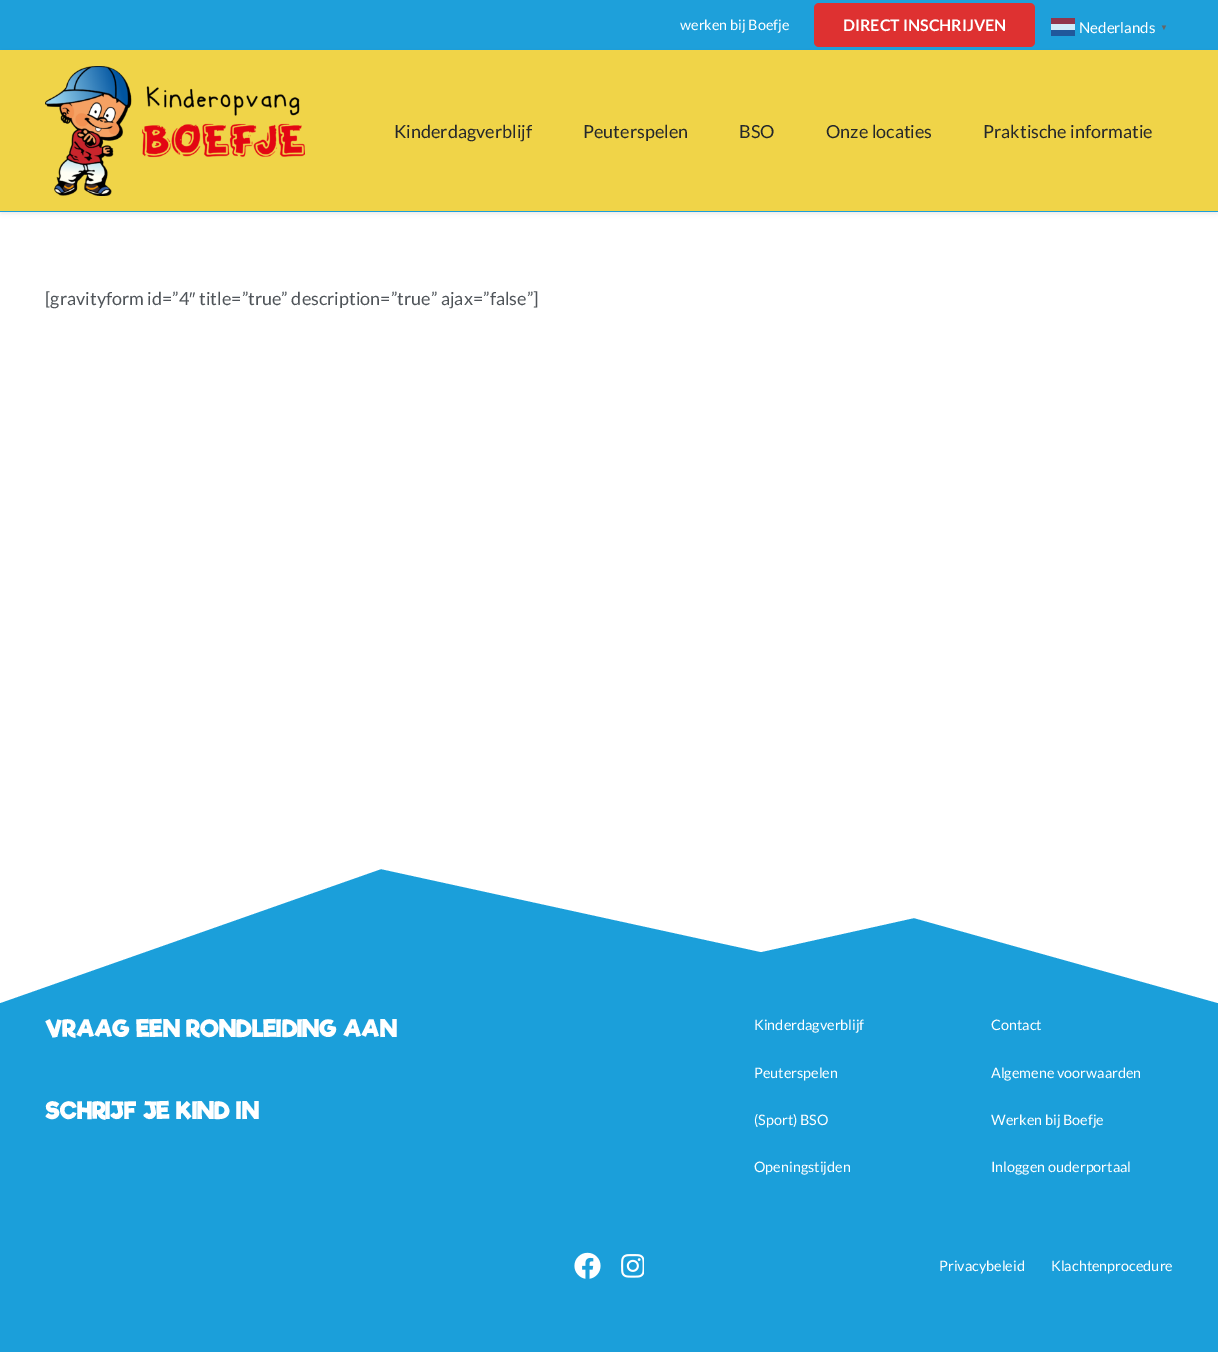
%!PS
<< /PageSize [1218 1352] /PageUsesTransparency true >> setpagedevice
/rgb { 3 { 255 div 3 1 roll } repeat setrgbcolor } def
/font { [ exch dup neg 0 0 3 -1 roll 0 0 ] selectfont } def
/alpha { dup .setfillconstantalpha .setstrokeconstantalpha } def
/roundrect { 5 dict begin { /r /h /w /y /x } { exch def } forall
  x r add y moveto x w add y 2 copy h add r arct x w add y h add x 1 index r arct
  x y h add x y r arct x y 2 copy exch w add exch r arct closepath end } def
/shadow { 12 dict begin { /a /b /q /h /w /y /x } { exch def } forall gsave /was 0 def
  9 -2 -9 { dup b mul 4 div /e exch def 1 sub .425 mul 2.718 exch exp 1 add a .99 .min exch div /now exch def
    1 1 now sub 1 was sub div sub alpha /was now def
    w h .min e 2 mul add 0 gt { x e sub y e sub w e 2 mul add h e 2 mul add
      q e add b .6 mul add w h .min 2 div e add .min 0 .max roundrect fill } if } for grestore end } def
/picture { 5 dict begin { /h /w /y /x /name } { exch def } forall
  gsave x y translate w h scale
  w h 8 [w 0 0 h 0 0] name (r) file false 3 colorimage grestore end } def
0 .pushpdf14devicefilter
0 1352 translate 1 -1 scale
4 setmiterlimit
255 255 255 rgb
0 0 1218 1352 rectfill
30 160 218 rgb
0 0 1218 50 rectfill
0 0 0 rgb
1 54 1216 159 0 2.5 0.1 shadow
222 49 49 rgb
814 3 221 44 5 roundrect fill
[
  [1051 24 24 6 210 236 248]
  [1051 30 24 6 32 88 155]
  [1051 18 24 6 145 54 76]
  [0 50 1218 161 240 212 72]
] { aload pop rgb rectfill } forall
(img/1.rgb) 45 66 260 130 picture
27 159 218 rgb
0 211 1218 1 rectfill
0 869 1218 483 rectfill
255 255 255 rgb
1218 868 moveto 0 868 lineto 0 1003 lineto 381 869 lineto 761 952 lineto 914 918 lineto 1218 1003 lineto closepath fill
(img/2.rgb) 574 1252 27 27 picture
(img/3.rgb) 621 1254 23 24 picture
/Lato-Regular 14.4 font
680 30 moveto (werken bij Boefje) show
/Lato-Bold 16 font
843 31 moveto (DIRECT INSCHRIJVEN) show
/Lato-Regular 15 font
1079 33 moveto (Nederlands) show
/LiberationSans-Bold 8 font
102 102 102 rgb
1160 30 moveto (▼) show
/Lato-Regular 18 font
37 40 43 rgb
[
  [(Kinderdagverblijf) 394 138]
  [(Peuterspelen) 583 138]
  [(BSO) 739 138]
  [(Onze locaties) 826 138]
  [(Praktische informatie) 983 138]
] { aload pop moveto show } forall
79 84 89 rgb
45 305 moveto ([gravityform id=”4) show
/LiberationSans-Regular 18 font
189 305 moveto (″) show
/Lato-Regular 18 font
199 305 moveto (title=”true” description=”true” ajax=”false”]) show
/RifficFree-Bold 23.4 font
255 255 255 rgb
45 1037 moveto (VRAAG EEN RONDLEIDING AAN) show
45 1119 moveto (SCHRIJF JE KIND IN) show
/Lato-Regular 14.4 font
[
  [(Kinderdagverblijf) 754 1030]
  [(Peuterspelen) 754 1078]
  [(\(Sport\) BSO) 754 1125]
  [(Openingstijden) 754 1172]
  [(Contact) 991 1030]
  [(Algemene voorwaarden) 991 1078]
  [(Werken bij Boefje) 991 1125]
  [(Inloggen ouderportaal) 991 1172]
  [(Privacybeleid) 939 1271]
  [(Klachtenprocedure) 1051 1271]
] { aload pop moveto show } forall
.poppdf14devicefilter showpage
